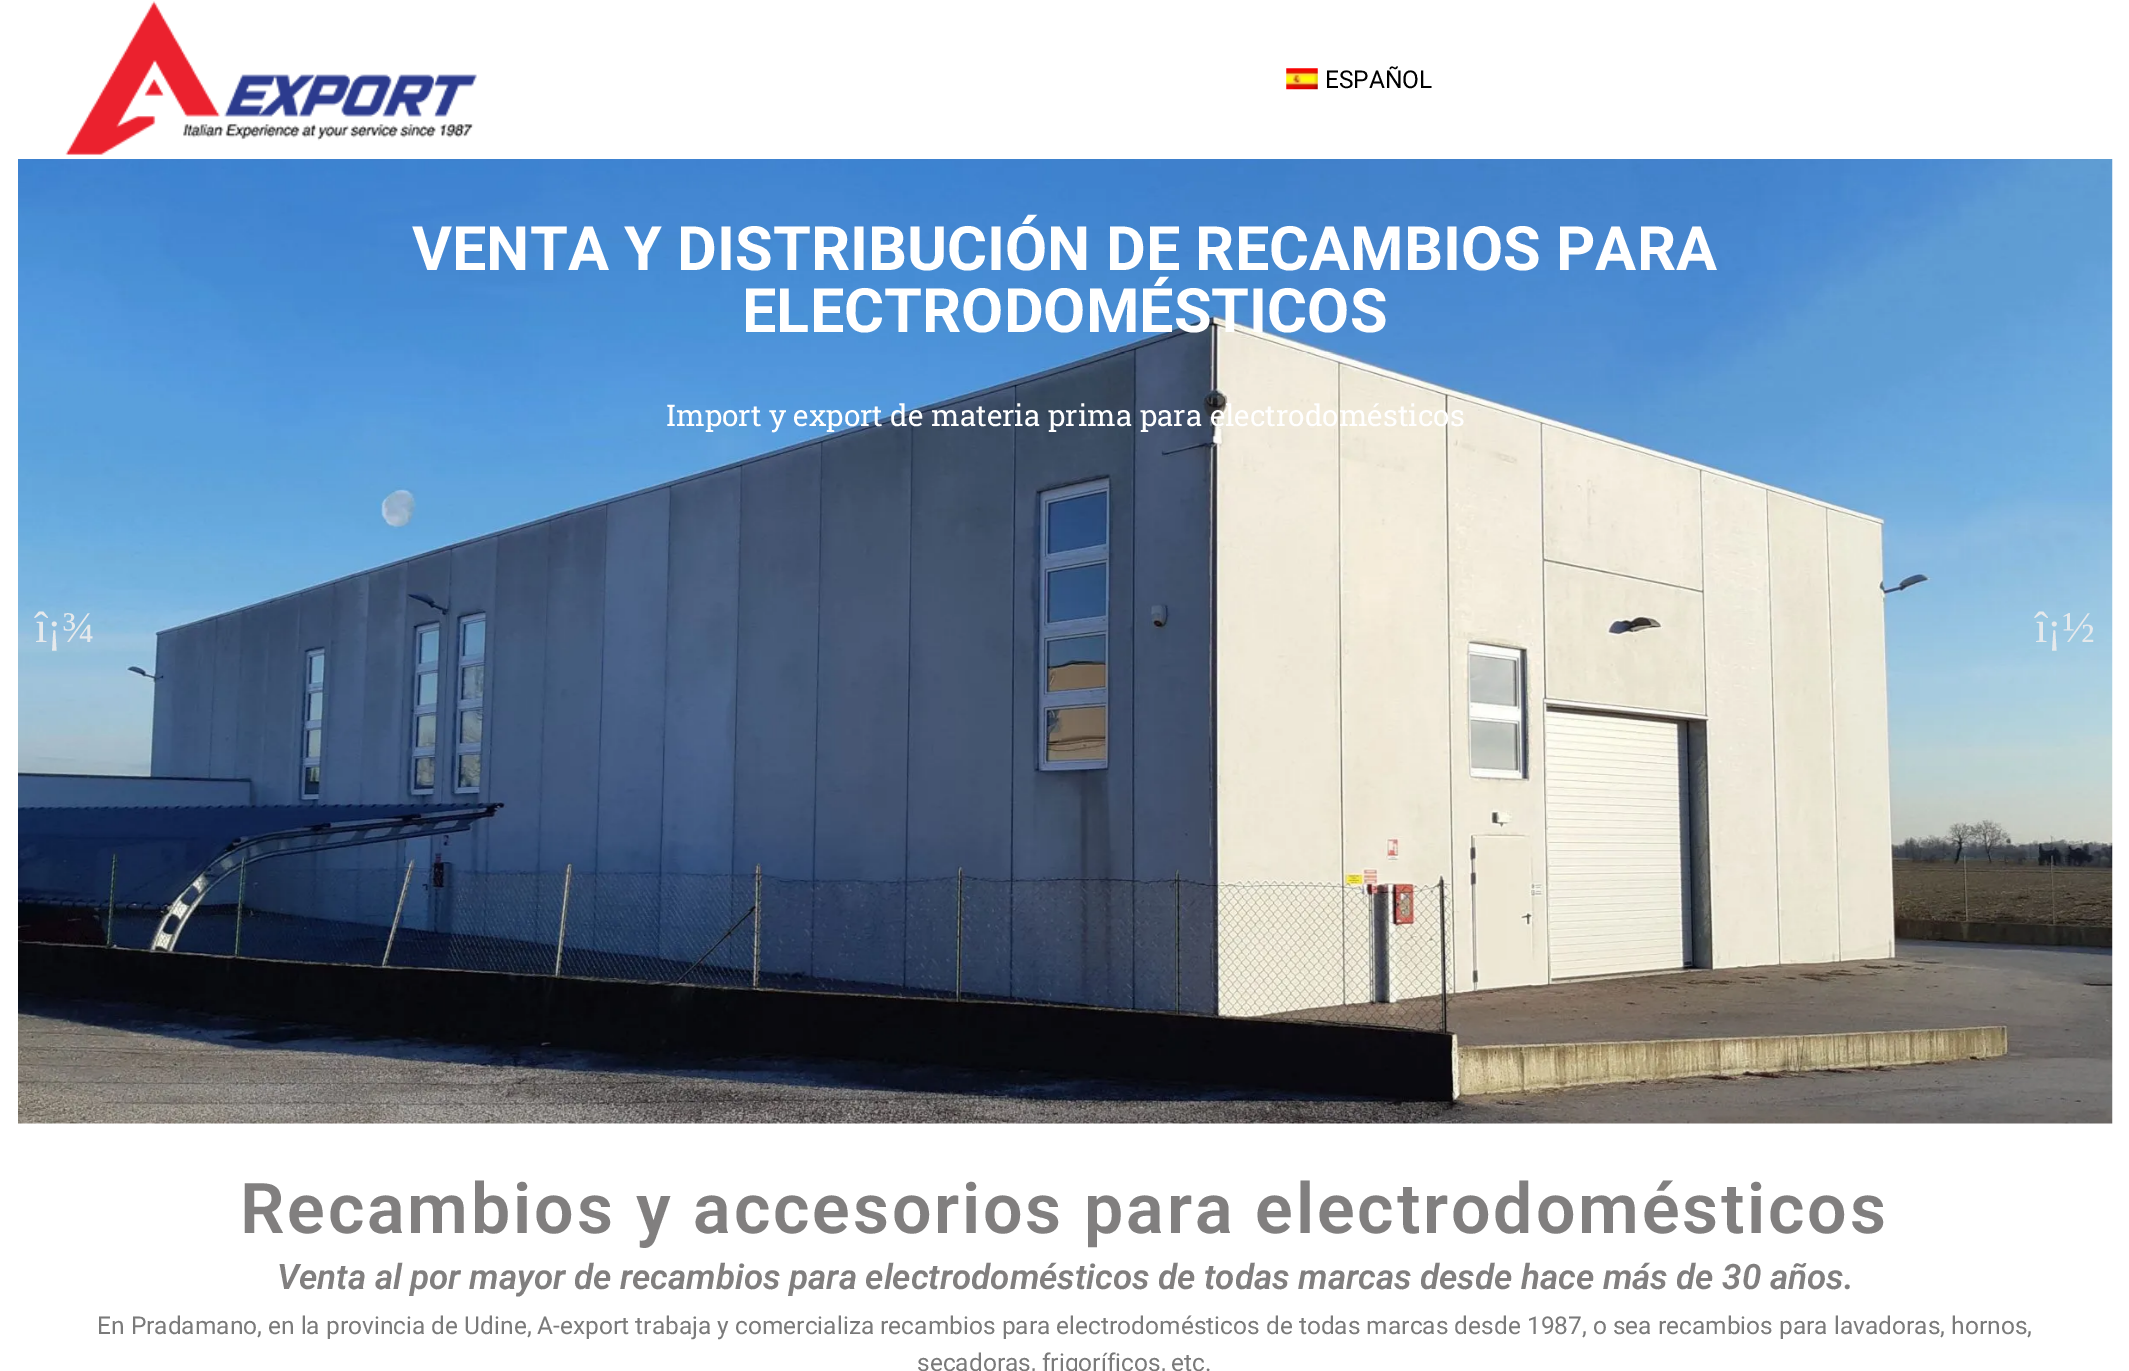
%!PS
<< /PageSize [2129 1371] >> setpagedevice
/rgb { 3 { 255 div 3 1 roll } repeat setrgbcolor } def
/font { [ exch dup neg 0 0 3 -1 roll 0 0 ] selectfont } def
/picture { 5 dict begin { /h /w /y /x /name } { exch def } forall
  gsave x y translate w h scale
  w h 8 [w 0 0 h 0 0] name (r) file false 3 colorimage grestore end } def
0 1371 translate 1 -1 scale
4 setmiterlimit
255 255 255 rgb
0 0 2129 1371 rectfill
(img/1.rgb) 65 1 412 154 picture
(img/2.rgb) 1286 68 32 22 picture
(img/3.rgb) 18 159 2095 965 picture
/Roboto-Regular 24.5 font
0 0 0 rgb
1325 88 moveto (ESPAÑOL) show
/Roboto-Bold 61.25 font
255 255 255 rgb
412 270 moveto (VENTA Y DISTRIBUCIÓN DE RECAMBIOS PARA) show
742 332 moveto (ELECTRODOMÉSTICOS) show
/RobotoSlab-Regular 29.75 font
666 426 moveto (Import y export de materia prima para electrodomésticos) show
/LiberationSerif-Regular 44 font
229 233 236 rgb
35 642 moveto (î¡¾) show
2035 642 moveto (î¡½) show
/Roboto-SemiBold 70 font
129 127 127 rgb
240 1233 moveto 2.8 0 (Recambios y accesorios para electrodomésticos) ashow
/Roboto-SemiBoldItalic 35 font
277 1289 moveto (Venta al por mayor de recambios para electrodomésticos de todas marcas desde hace más de 30 años.) show
/Roboto-Regular 24.5 font
122 122 122 rgb
97 1334 moveto (En Pradamano, en la provincia de Udine, A-export trabaja y comercializa recambios para electrodomésticos de todas marcas desde 1987, o sea recambios para lavadoras, hornos,) show
917 1371 moveto (secadoras, frigoríficos, etc.) show
showpage
